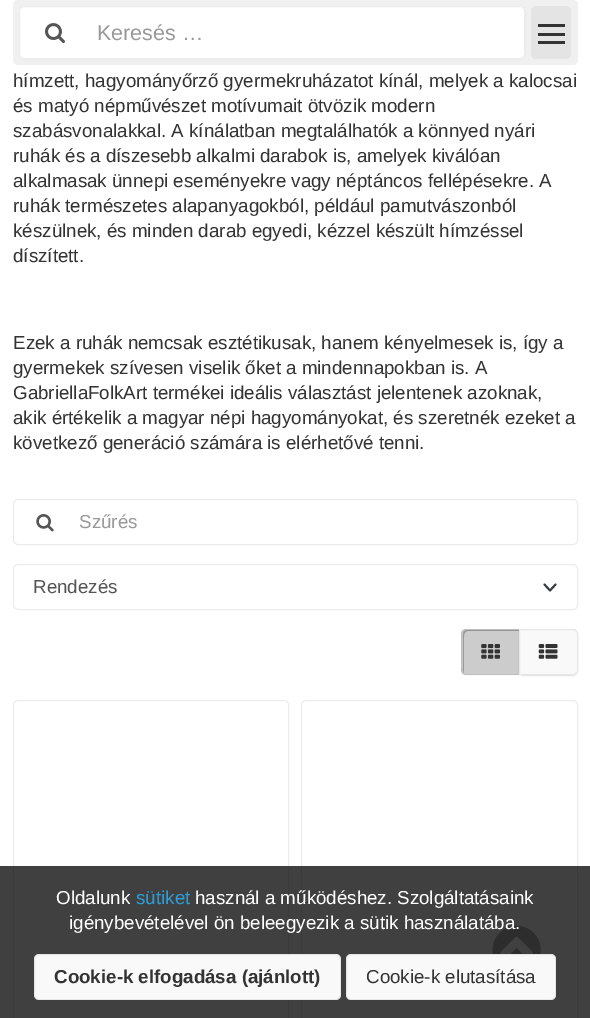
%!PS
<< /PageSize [590 1018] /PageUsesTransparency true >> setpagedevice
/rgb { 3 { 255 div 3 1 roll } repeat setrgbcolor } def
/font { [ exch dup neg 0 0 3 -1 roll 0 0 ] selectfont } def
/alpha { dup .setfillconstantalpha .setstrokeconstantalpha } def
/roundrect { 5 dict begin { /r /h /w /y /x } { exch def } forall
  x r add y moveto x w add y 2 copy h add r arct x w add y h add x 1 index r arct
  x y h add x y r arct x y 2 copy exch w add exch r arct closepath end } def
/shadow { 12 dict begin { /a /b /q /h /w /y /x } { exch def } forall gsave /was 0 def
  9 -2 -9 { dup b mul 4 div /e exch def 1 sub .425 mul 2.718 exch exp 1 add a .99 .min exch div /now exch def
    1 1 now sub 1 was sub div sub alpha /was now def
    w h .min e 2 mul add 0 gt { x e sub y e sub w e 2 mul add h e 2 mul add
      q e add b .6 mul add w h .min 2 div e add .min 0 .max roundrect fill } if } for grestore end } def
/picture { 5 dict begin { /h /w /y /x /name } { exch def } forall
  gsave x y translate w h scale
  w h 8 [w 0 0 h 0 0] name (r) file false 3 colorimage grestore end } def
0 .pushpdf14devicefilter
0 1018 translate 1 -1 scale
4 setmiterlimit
255 255 255 rgb
0 0 590 1018 rectfill
240 240 240 rgb
13 0 565 65 5 roundrect fill
255 255 255 rgb
19 6 506 53 5 roundrect fill
0.07 alpha
0 0 0 rgb
19.5 6.5 505 52 4.5 roundrect stroke
1 alpha
(img/1.rgb) 45 23 20 21 picture
228 228 228 rgb
531 6 40 53 5 roundrect fill
[
  [538 24 27 3 51 51 51]
  [538 33 27 3 51 51 51]
  [538 41 27 3 51 51 51]
] { aload pop rgb rectfill } forall
236 236 236 rgb
13.5 499.5 564 45 4.5 roundrect stroke
(img/2.rgb) 36 514 18 18 picture
52 58 64 rgb
1.9 setlinewidth
1 setlinecap
1 setlinejoin
544.5 584.5 moveto 550 590.5 lineto 555.5 584.5 lineto stroke
236 236 236 rgb
1 setlinewidth
0 setlinecap
0 setlinejoin
13.5 564.5 564 45 4.5 roundrect stroke
204 204 204 rgb
466 629 moveto 520 629 lineto 520 675 lineto 466 675 lineto 463 675 461 673 461 670 curveto 461 634 lineto 461 631 463 629 466 629 curveto closepath fill
153 153 153 rgb
468 631 moveto 519 631 lineto 519 630 lineto 467 630 lineto 465 630 463 632 463 634 curveto 463 670 lineto 463 671 464 672 464 673 curveto 464 641 lineto 464 638 463 631 468 631 curveto closepath fill
0.07 alpha
0 0 0 rgb
466 629.5 moveto 519.5 629.5 lineto 519.5 674.5 lineto 466 674.5 lineto 463.5 674.5 461.5 672.5 461.5 670 curveto 461.5 634 lineto 461.5 631.5 463.5 629.5 466 629.5 curveto closepath stroke
1 alpha
(img/3.rgb) 481 644 19 15 picture
519 630 59 46 5 0.5 0.1 shadow
249 249 249 rgb
519 629 moveto 573 629 lineto 576 629 578 631 578 634 curveto 578 670 lineto 578 673 576 675 573 675 curveto 519 675 lineto closepath fill
0.07 alpha
0 0 0 rgb
519.5 629.5 moveto 573 629.5 lineto 575.5 629.5 577.5 631.5 577.5 634 curveto 577.5 670 lineto 577.5 672.5 575.5 674.5 573 674.5 curveto 519.5 674.5 lineto closepath stroke
1 alpha
(img/4.rgb) 538 644 20 15 picture
236 236 236 rgb
13.5 700.5 275 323 4.5 roundrect stroke
301.5 700.5 276 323 4.5 roundrect stroke
(img/5.rgb) 492 925 49 29 picture
0.75 alpha
0 0 0 rgb
0 866 590 152 rectfill
1 alpha
249 249 249 rgb
34 954 307 46 5 roundrect fill
0.07 alpha
0 0 0 rgb
34.5 954.5 306 45 4.5 roundrect stroke
1 alpha
249 249 249 rgb
346 954 210 46 5 roundrect fill
0.07 alpha
0 0 0 rgb
346.5 954.5 209 45 4.5 roundrect stroke
/LiberationSans-Regular 21.5 font
1 alpha
153 153 153 rgb
97 40 moveto (Keresés …) show
/LiberationSans-Regular 18.75 font
51 51 51 rgb
[
  [(hímzett, hagyományőrző gyermekruházatot kínál, melyek a kalocsai) 13 87]
  [(és matyó népművészet motívumait ötvözik modern) 13 112]
  [(szabásvonalakkal. A kínálatban megtalálhatók a könnyed nyári) 13 137]
  [(ruhák és a díszesebb alkalmi darabok is, amelyek kiválóan) 13 162]
  [(alkalmasak ünnepi eseményekre vagy néptáncos fellépésekre. A) 13 187]
  [(ruhák természetes alapanyagokból, például pamutvászonból) 13 212]
  [(készülnek, és minden darab egyedi, kézzel készült hímzéssel) 13 237]
  [(díszített.) 13 262]
  [(Ezek a ruhák nemcsak esztétikusak, hanem kényelmesek is, így a) 13 349]
  [(gyermekek szívesen viselik őket a mindennapokban is. A) 13 374]
  [(GabriellaFolkArt termékei ideális választást jelentenek azoknak,) 13 399]
  [(akik értékelik a magyar népi hagyományokat, és szeretnék ezeket a) 13 424]
  [(következő generáció számára is elérhetővé tenni.) 13 449]
] { aload pop moveto show } forall
153 153 153 rgb
79 528 moveto (Szűrés) show
85 85 85 rgb
33 593 moveto (Rendezés) show
255 255 255 rgb
56 904 moveto (Oldalunk) show
46 156 212 rgb
136 904 moveto (sütiket) show
255 255 255 rgb
195 904 moveto (használ a működéshez. Szolgáltatásaink) show
69 929 moveto (igénybevételével ön beleegyezik a sütik használatába.) show
/LiberationSans-Bold 18.75 font
51 51 51 rgb
54 983 moveto (Cookie-k elfogadása \(ajánlott\)) show
/LiberationSans-Regular 18.75 font
366 983 moveto (Cookie-k elutasítása) show
.poppdf14devicefilter showpage
